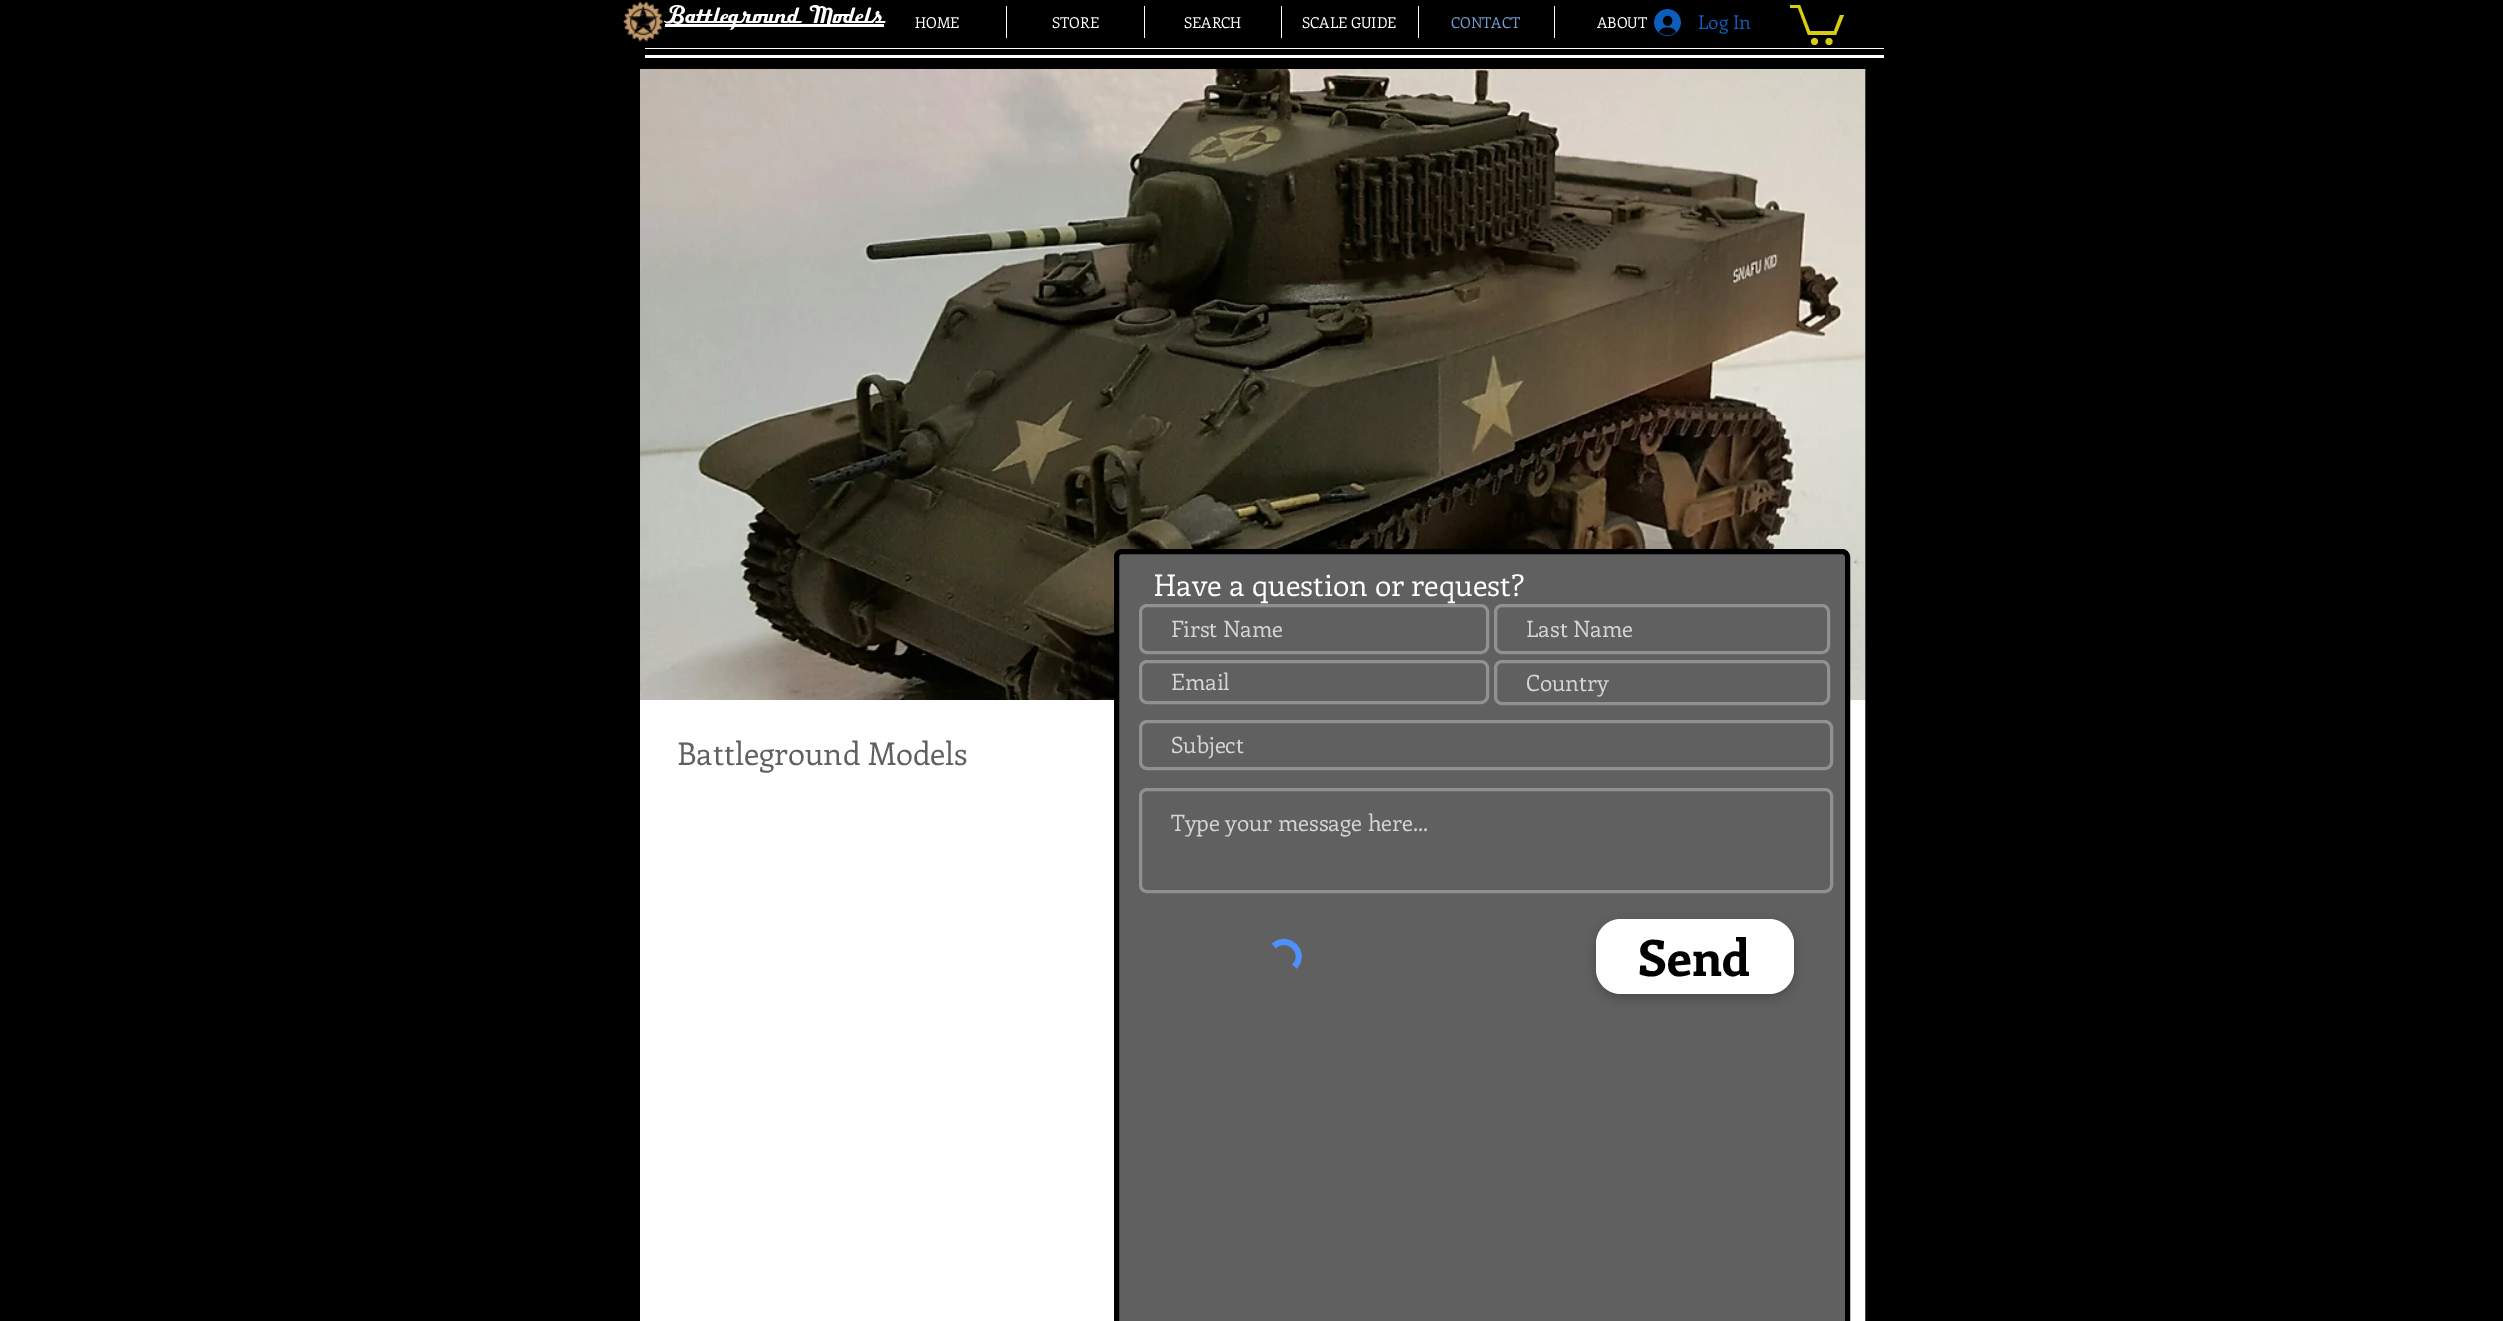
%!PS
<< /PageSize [2503 1321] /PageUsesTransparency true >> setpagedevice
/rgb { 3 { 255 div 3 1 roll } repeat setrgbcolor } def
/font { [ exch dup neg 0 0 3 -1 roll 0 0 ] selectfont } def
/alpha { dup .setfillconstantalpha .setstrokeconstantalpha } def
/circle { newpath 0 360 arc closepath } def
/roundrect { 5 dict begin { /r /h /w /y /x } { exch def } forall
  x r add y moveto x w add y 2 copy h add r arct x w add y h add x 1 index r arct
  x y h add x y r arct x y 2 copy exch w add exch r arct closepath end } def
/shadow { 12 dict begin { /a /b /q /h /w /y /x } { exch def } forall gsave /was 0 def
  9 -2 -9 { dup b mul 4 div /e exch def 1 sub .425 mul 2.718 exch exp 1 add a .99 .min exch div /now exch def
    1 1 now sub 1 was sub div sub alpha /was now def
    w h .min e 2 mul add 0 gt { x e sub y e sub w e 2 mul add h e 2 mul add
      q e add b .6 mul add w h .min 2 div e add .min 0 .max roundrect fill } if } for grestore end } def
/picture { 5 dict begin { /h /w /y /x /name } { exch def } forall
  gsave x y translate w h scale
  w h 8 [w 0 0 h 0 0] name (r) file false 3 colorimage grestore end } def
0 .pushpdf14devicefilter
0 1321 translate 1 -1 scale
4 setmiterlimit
0 0 0 rgb
0 0 2503 1321 rectfill
(img/1.rgb) 622 1 42 41 picture
[
  [665 24 219 3 255 255 255]
  [1006 6 1 32 255 255 255]
  [1144 6 1 32 255 255 255]
  [1281 6 1 32 255 255 255]
  [1418 6 1 32 255 255 255]
  [1554 6 1 32 255 255 255]
] { aload pop rgb rectfill } forall
(img/2.rgb) 1654 9 27 27 picture
214 204 17 rgb
1844 15 moveto 1836 35 lineto 1808 35 lineto 1798 8 lineto 1790 8 lineto 1790 5 lineto 1800 5 lineto 1810 31 lineto 1834 31 lineto 1840 15 lineto fill
1829 41.5 3.5 circle fill
1814.5 41.5 3.5 circle fill
[
  [645 48 1239 1 255 255 255]
  [645 55 1239 3 255 255 255]
  [641 700 1223 621 255 255 255]
] { aload pop rgb rectfill } forall
640.5 69.5 1224 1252 rectstroke
(img/3.rgb) 640 68 1225 632 picture
0.6 alpha
0 0 0 rgb
640 68 1225 1 rectfill
1 alpha
96 96 96 rgb
1116.5 551.5 731 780 5.5 roundrect gsave fill grestore
0 0 0 rgb
5 setlinewidth
stroke
145 145 145 rgb
3 setlinewidth
1140.5 605.5 347 47 6.5 roundrect stroke
1495.5 605.5 333 47 6.5 roundrect stroke
1140.5 661.5 347 41 6.5 roundrect stroke
1495.5 661.5 333 42 6.5 roundrect stroke
1140.5 721.5 691 47 6.5 roundrect stroke
144 144 144 rgb
1140.5 789.5 691 102 6.5 roundrect stroke
77 144 254 rgb
5.8 setlinewidth
1274 946 moveto 1287.5 933 1308 953 1294.5 966.5 curveto stroke
0 0 0 rgb
1596 923 198 75 25 5.5 0.23 shadow
255 255 255 rgb
1596 919 198 75 25 roundrect fill
/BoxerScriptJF-Regular 25 font
664 23 moveto (Battleground Models) show
/Enriqueta-Regular 15 font
[
  [(HOME) 915 28]
  [(STORE) 1052 28]
  [(SEARCH) 1184 28]
  [(SCALE GUIDE) 1302 28]
] { aload pop moveto show } forall
112 157 209 rgb
1451 28 moveto (CONTACT) show
255 255 255 rgb
1597 28 moveto (ABOUT) show
/Enriqueta-Regular 19 font
13 94 186 rgb
1698 29 moveto (Log In) show
/Enriqueta-Regular 31.25 font
96 96 96 rgb
677 765 moveto (Battleground Models) show
/Enriqueta-Regular 30 font
255 255 255 rgb
1154 596 moveto (Have a question or request?) show
/Enriqueta-Regular 22.5 font
212 212 212 rgb
[
  [(First Name) 1171 637]
  [(Last Name) 1526 637]
  [(Email) 1171 690]
  [(Country) 1526 691]
  [(Subject) 1171 753]
  [(Type your message here...) 1171 831]
] { aload pop moveto show } forall
/Enriqueta-Bold 50 font
0 0 0 rgb
1638 976 moveto (Send) show
.poppdf14devicefilter showpage
